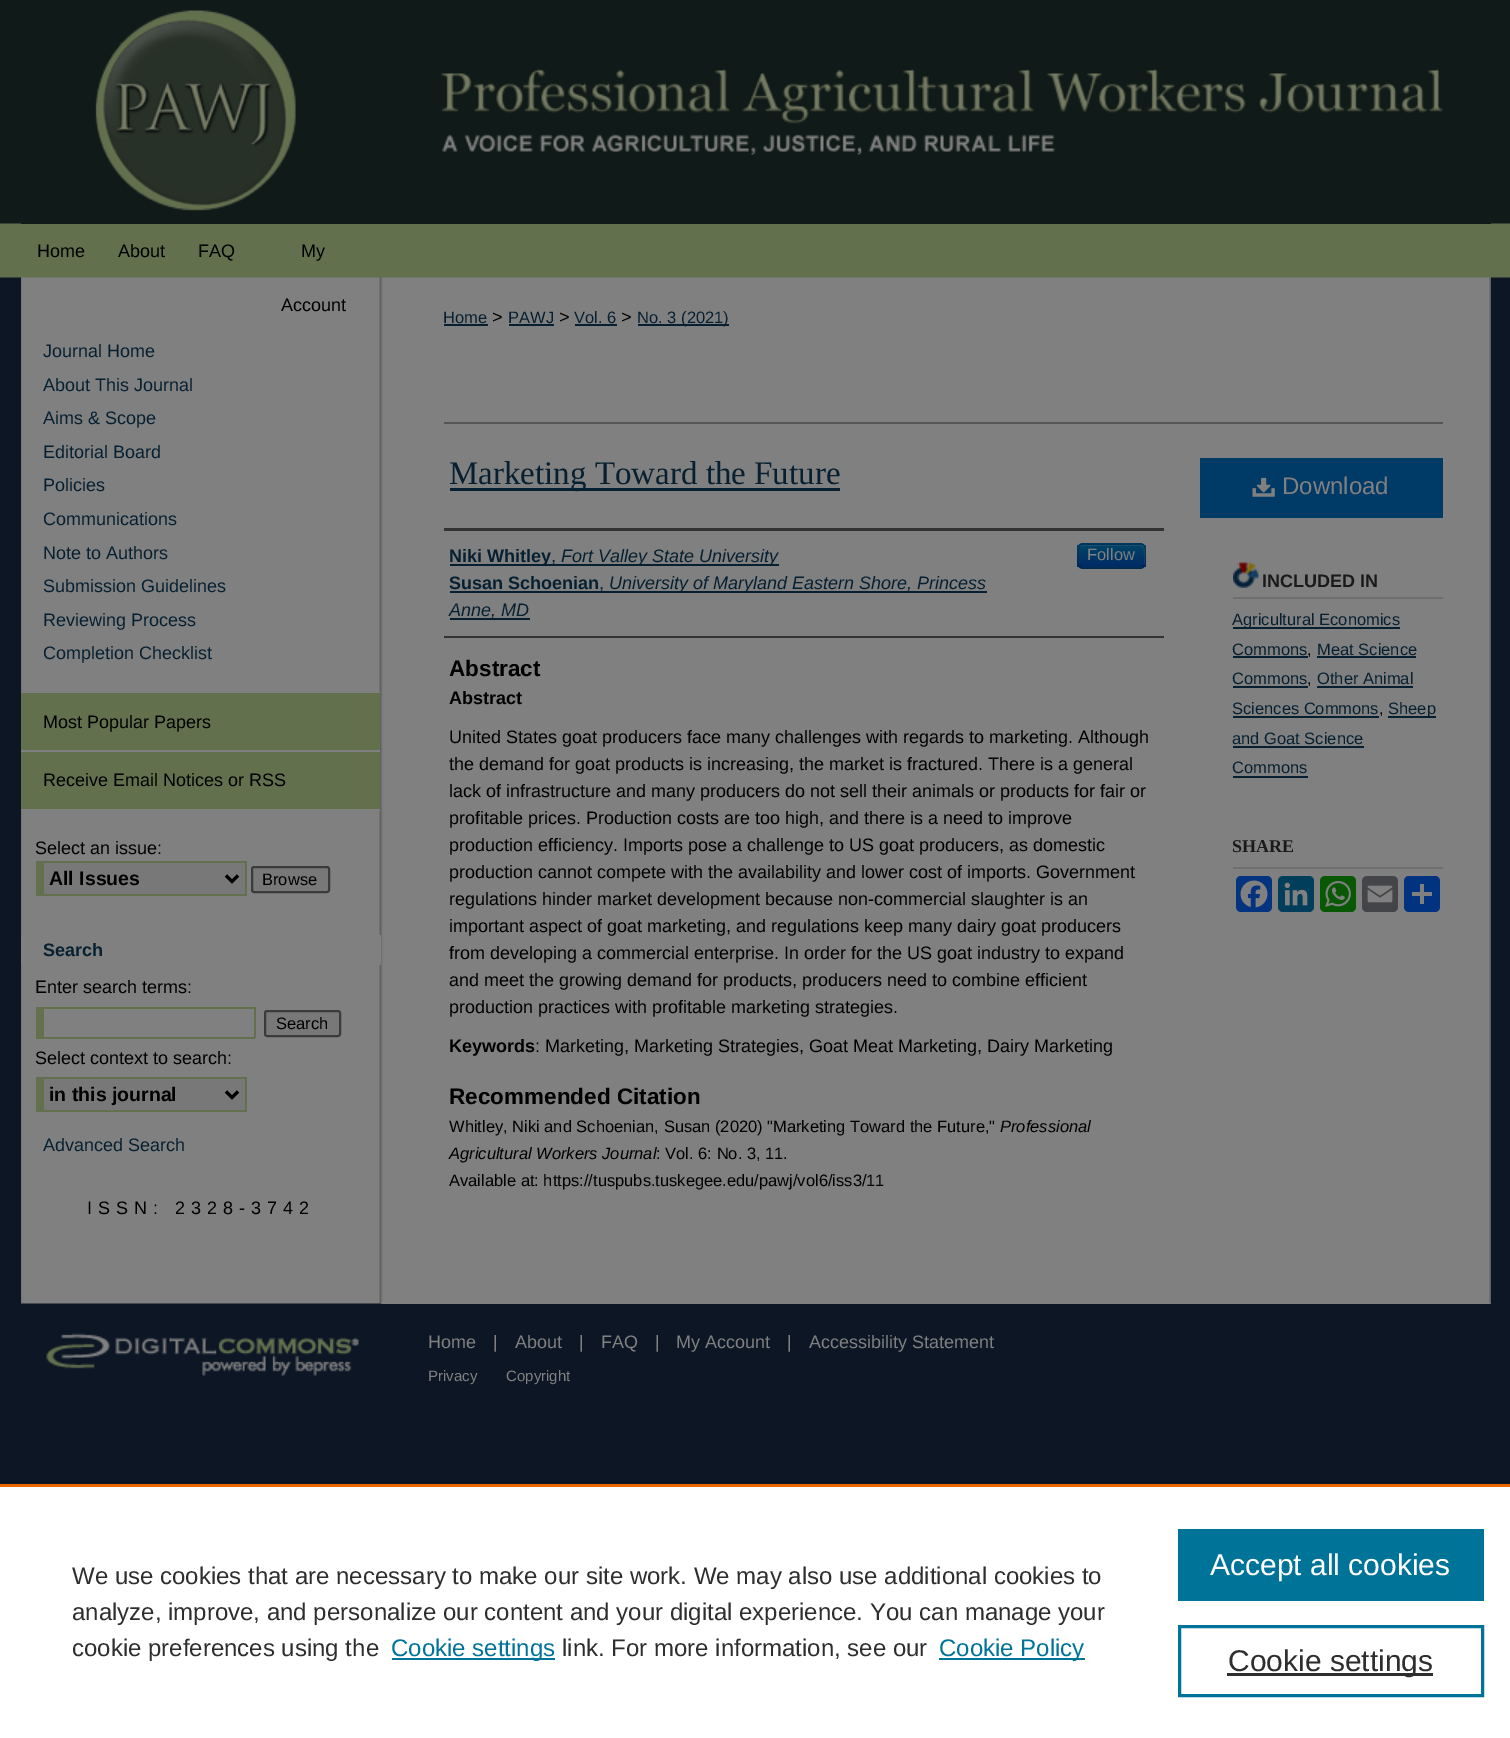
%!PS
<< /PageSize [1510 1738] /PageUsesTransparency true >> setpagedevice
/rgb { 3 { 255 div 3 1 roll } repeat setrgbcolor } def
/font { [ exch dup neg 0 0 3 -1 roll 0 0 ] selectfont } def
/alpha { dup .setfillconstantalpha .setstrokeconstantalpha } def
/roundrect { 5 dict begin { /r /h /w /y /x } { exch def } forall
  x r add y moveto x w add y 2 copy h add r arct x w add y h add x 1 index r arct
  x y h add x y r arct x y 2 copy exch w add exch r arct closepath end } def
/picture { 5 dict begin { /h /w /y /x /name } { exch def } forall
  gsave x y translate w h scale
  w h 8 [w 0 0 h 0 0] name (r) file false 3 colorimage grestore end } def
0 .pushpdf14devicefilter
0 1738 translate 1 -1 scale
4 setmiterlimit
13 22 37 rgb
0 0 1510 1738 rectfill
(img/1.rgb) 0 0 1510 278 picture
16 27 24 rgb
21 223 1470 1 rectfill
(img/2.rgb) 95 10 1349 201 picture
99 112 78 rgb
21 277 1470 1 rectfill
128 128 128 rgb
21 1303 1470 1 rectfill
(img/3.rgb) 21 277 1470 1027 picture
[
  [21 692 359 1 128 128 128]
  [21 693 359 57 99 112 78]
  [21 750 359 2 128 128 128]
  [21 752 359 57 99 112 78]
  [21 809 359 2 128 128 128]
  [44 863 201 31 120 120 120]
  [36 861 210 2 99 112 78]
  [245 861 2 35 99 112 78]
  [36 894 210 2 99 112 78]
  [36 861 8 35 99 112 78]
] { aload pop rgb rectfill } forall
0 0 0 rgb
3 setlinewidth
226 875.5 moveto 232 881.5 lineto 238 875.5 lineto stroke
120 120 120 rgb
252 867 77 25 2 roundrect gsave fill grestore
59 59 59 rgb
2 setlinewidth
stroke
[
  [21 935 360 30 128 128 128]
  [36 1007 219 2 99 112 78]
  [254 1007 2 31 99 112 78]
  [36 1037 219 2 99 112 78]
  [36 1007 8 31 99 112 78]
] { aload pop rgb rectfill } forall
120 120 120 rgb
265 1011 75 25 2 roundrect gsave fill grestore
59 59 59 rgb
stroke
[
  [44 1079 201 31 120 120 120]
  [36 1077 210 2 99 112 78]
  [245 1077 2 35 99 112 78]
  [36 1110 210 2 99 112 78]
  [36 1077 8 35 99 112 78]
] { aload pop rgb rectfill } forall
0 0 0 rgb
3 setlinewidth
226 1091.5 moveto 232 1097.5 lineto 238 1091.5 lineto stroke
[
  [444 324 44 2 7 32 49]
  [509 324 45 2 7 32 49]
  [575 324 42 2 7 32 49]
  [638 324 91 2 7 32 49]
  [444 422 999 2 85 85 85]
  [450 488 390 3 7 32 49]
  [444 528 720 3 51 51 51]
  [444 636 720 2 51 51 51]
  [450 564 329 2 7 32 49]
] { aload pop rgb rectfill } forall
0 58 102 rgb
1077 543 69 26 6 roundrect fill
gsave
1077 543 69 26 6 roundrect clip newpath
gsave 1077 545 moveto 1146 545 lineto 1146 567 lineto 1077 567 lineto closepath clip newpath
<< /ShadingType 2 /ColorSpace /DeviceRGB /Coords [1112 545 1112 567] /Extend [true true] /Function << /FunctionType 2 /Domain [0 1] /C0 [0 0.267 0.4] /C1 [0 0.169 0.4] /N 1 >> >> shfill grestore
grestore
0.2 alpha
128 128 128 rgb
1083 546 moveto 1130 546 lineto 1142 546 1144 544 1144 555 curveto 1144 565 lineto 1145 564 1145 563 1145 562 curveto 1145 550 lineto 1145 547 1143 545 1140 545 curveto 1084 545 lineto 1082 545 1081 546 1080 547 curveto closepath fill
0.25 alpha
0 0 0 rgb
1.5 setlinewidth
1143.5 566 moveto 1142.5 567 1141.5 568 1140 568 curveto 1083 568 lineto 1081.5 568 1080.5 567 1079.5 566 curveto stroke
0.1 alpha
1079.5 566 moveto 1076.5 563.5 1078 559 1078 556 curveto 1078 542.5 1078.5 544 1092.5 544 curveto 1130.5 544 lineto 1144.5 544 1145 542.5 1145 556 curveto 1145 559 1146.5 563.5 1143.5 566 curveto stroke
1 alpha
[
  [450 591 537 2 7 32 49]
  [450 618 80 2 7 32 49]
  [1200 458 243 60 0 58 102]
] { aload pop rgb rectfill } forall
(img/4.rgb) 1252 477 23 20 picture
(img/5.rgb) 1233 562 26 26 picture
[
  [1233 597 210 2 111 111 111]
  [1233 627 167 2 7 32 49]
  [1233 656 75 2 7 32 49]
  [1317 656 99 2 7 32 49]
  [1233 686 75 2 7 32 49]
  [1317 686 96 2 7 32 49]
  [1233 716 146 2 7 32 49]
  [1388 716 48 2 7 32 49]
  [1233 746 131 2 7 32 49]
  [1233 776 75 2 7 32 49]
  [1233 867 210 2 111 111 111]
] { aload pop rgb rectfill } forall
4 51 128 rgb
1236 876 36 36 5 roundrect fill
(img/6.rgb) 1240 880 28 28 picture
0 62 91 rgb
1278 876 36 36 5 roundrect fill
(img/7.rgb) 1284 882 24 24 picture
9 88 5 rgb
1320 876 36 36 5 roundrect fill
(img/8.rgb) 1325 881 26 26 picture
68 69 72 rgb
1362 876 36 36 5 roundrect fill
(img/9.rgb) 1367 885 26 18 picture
1 51 128 rgb
1404 876 36 36 5 roundrect fill
128 128 128 rgb
1420 884 4 20 rectfill
1412 892 20 4 rectfill
(img/10.rgb) 21 1303 360 73 picture
[
  [0 1487 1510 251 255 255 255]
  [0 1484 1510 3 235 101 0]
  [392 1658 163 2 0 115 152]
  [939 1658 146 2 0 115 152]
  [1178 1529 306 72 0 115 152]
] { aload pop rgb rectfill } forall
3 setlinewidth
1179.5 1626.5 303 69 rectstroke
46 46 46 rgb
1227 1673 206 3 rectfill
/LiberationSans-Regular 18 font
0 0 0 rgb
[
  [(Home) 37 257]
  [(About) 118 257]
  [(FAQ) 198 257]
  [(My) 301 257]
  [(Account) 281 311]
] { aload pop moveto show } forall
7 32 49 rgb
[
  [(Journal Home) 43 357]
  [(About This Journal) 43 391]
  [(Aims & Scope) 43 424]
  [(Editorial Board) 43 458]
  [(Policies) 43 491]
  [(Communications) 43 525]
  [(Note to Authors) 43 559]
  [(Submission Guidelines) 43 592]
  [(Reviewing Process) 43 626]
  [(Completion Checklist) 43 659]
] { aload pop moveto show } forall
0 0 0 rgb
[
  [(Most Popular Papers) 43 728]
  [(Receive Email Notices or RSS) 43 786]
  [(Select an issue:) 35 854]
] { aload pop moveto show } forall
/LiberationSans-Bold 19.5 font
49 885 moveto (All Issues) show
/LiberationSans-Regular 16.5 font
262 885 moveto (Browse) show
/LiberationSans-Bold 18 font
7 32 49 rgb
43 956 moveto (Search) show
/LiberationSans-Regular 18 font
0 0 0 rgb
35 993 moveto (Enter search terms:) show
/LiberationSans-Regular 16.5 font
276 1029 moveto (Search) show
/LiberationSans-Regular 18 font
35 1064 moveto (Select context to search:) show
/LiberationSans-Bold 19.5 font
49 1101 moveto (in this journal) show
/LiberationSans-Regular 18 font
7 32 49 rgb
43 1151 moveto (Advanced Search) show
0 0 0 rgb
87 1214 moveto 6 0 (ISSN: 2328-3742) ashow
/LiberationSans-Regular 16.5 font
7 32 49 rgb
443 323 moveto (Home) show
/LiberationSans-Regular 18 font
0 0 0 rgb
492 323 moveto (>) show
/LiberationSans-Regular 16.5 font
7 32 49 rgb
508 323 moveto (PAWJ) show
/LiberationSans-Regular 18 font
0 0 0 rgb
559 323 moveto (>) show
/LiberationSans-Regular 16.5 font
7 32 49 rgb
574 323 moveto (Vol. 6) show
/LiberationSans-Regular 18 font
0 0 0 rgb
621 323 moveto (>) show
/LiberationSans-Regular 16.5 font
7 32 49 rgb
637 323 moveto (No. 3 \(2021\)) show
/LiberationSerif-Regular 33 font
449 484 moveto (Marketing Toward the Future) show
/LiberationSans-Bold 18 font
449 562 moveto (Niki Whitley) show
/LiberationSans-Regular 18 font
551 562 moveto (,) show
/LiberationSans-Italic 18 font
561 562 moveto (Fort Valley State University) show
/LiberationSans-Regular 16.5 font
128 128 128 rgb
1087 560 moveto (Follow) show
/LiberationSans-Bold 18 font
7 32 49 rgb
449 589 moveto (Susan Schoenian) show
/LiberationSans-Regular 18 font
599 589 moveto (,) show
/LiberationSans-Italic 18 font
609 589 moveto (University of Maryland Eastern Shore, Princess) show
449 616 moveto (Anne, MD) show
/LiberationSans-Bold 22.5 font
0 0 0 rgb
449 676 moveto (Abstract) show
/LiberationSans-Bold 18 font
449 704 moveto (Abstract) show
/LiberationSans-Regular 18 font
[
  [(United States goat producers face many challenges with regards to marketing. Although) 449 743]
  [(the demand for goat products is increasing, the market is fractured. There is a general) 449 770]
  [(lack of infrastructure and many producers do not sell their animals or products for fair or) 449 797]
  [(profitable prices. Production costs are too high, and there is a need to improve) 449 824]
  [(production efficiency. Imports pose a challenge to US goat producers, as domestic) 449 851]
  [(production cannot compete with the availability and lower cost of imports. Government) 449 878]
  [(regulations hinder market development because non-commercial slaughter is an) 449 905]
  [(important aspect of goat marketing, and regulations keep many dairy goat producers) 449 932]
  [(from developing a commercial enterprise. In order for the US goat industry to expand) 449 959]
  [(and meet the growing demand for products, producers need to combine efficient) 449 986]
  [(production practices with profitable marketing strategies.) 449 1013]
] { aload pop moveto show } forall
/LiberationSans-Bold 18 font
449 1052 moveto (Keywords) show
/LiberationSans-Regular 18 font
535 1052 moveto (: Marketing, Marketing Strategies, Goat Meat Marketing, Dairy Marketing) show
/LiberationSans-Bold 22.5 font
449 1104 moveto (Recommended Citation) show
/LiberationSans-Regular 16.5 font
449 1132 moveto (Whitley, Niki and Schoenian, Susan \(2020\) "Marketing Toward the Future,") show
/LiberationSans-Italic 16.5 font
1000 1132 moveto (Professional) show
449 1159 moveto (Agricultural Workers Journal) show
/LiberationSans-Regular 16.5 font
656 1159 moveto (: Vol. 6: No. 3, 11.) show
449 1186 moveto (Available at: https://tuspubs.tuskegee.edu/pawj/vol6/iss3/11) show
/LiberationSans-Regular 24 font
128 128 128 rgb
1282 494 moveto (Download) show
/LiberationSans-Bold 18 font
26 26 26 rgb
1262 587 moveto (INCLUDED IN) show
/LiberationSans-Regular 16.5 font
7 32 49 rgb
1232 625 moveto (Agricultural Economics) show
1232 655 moveto (Commons) show
0 0 0 rgb
1307 655 moveto (,) show
7 32 49 rgb
1317 655 moveto (Meat Science) show
1232 684 moveto (Commons) show
0 0 0 rgb
1307 684 moveto (,) show
7 32 49 rgb
1317 684 moveto (Other Animal) show
1232 714 moveto (Sciences Commons) show
0 0 0 rgb
1379 714 moveto (,) show
7 32 49 rgb
[
  [(Sheep) 1388 714]
  [(and Goat Science) 1232 744]
  [(Commons) 1232 773]
] { aload pop moveto show } forall
/LiberationSerif-Bold 18 font
26 26 26 rgb
1232 852 moveto (SHARE) show
/LiberationSans-Regular 18 font
128 128 128 rgb
[
  [(Home) 428 1348]
  [(|) 493 1348]
  [(About) 515 1348]
  [(|) 579 1348]
  [(FAQ) 601 1348]
  [(|) 655 1348]
  [(My Account) 676 1348]
  [(|) 787 1348]
  [(Accessibility Statement) 809 1348]
] { aload pop moveto show } forall
/LiberationSans-Regular 15 font
428 1381 moveto (Privacy) show
506 1381 moveto (Copyright) show
/LiberationSans-Regular 24 font
46 46 46 rgb
[
  [(We use cookies that are necessary to make our site work. We may also use additional cookies to) 72 1584]
  [(analyze, improve, and personalize our content and your digital experience. You can manage your) 72 1620]
  [(cookie preferences using the) 72 1656]
] { aload pop moveto show } forall
0 115 152 rgb
391 1656 moveto (Cookie settings) show
46 46 46 rgb
562 1656 moveto (link. For more information, see our) show
0 115 152 rgb
939 1656 moveto (Cookie Policy) show
/LiberationSans-Regular 30 font
255 255 255 rgb
1210 1575 moveto (Accept all cookies) show
46 46 46 rgb
1228 1671 moveto (Cookie settings) show
.poppdf14devicefilter showpage
